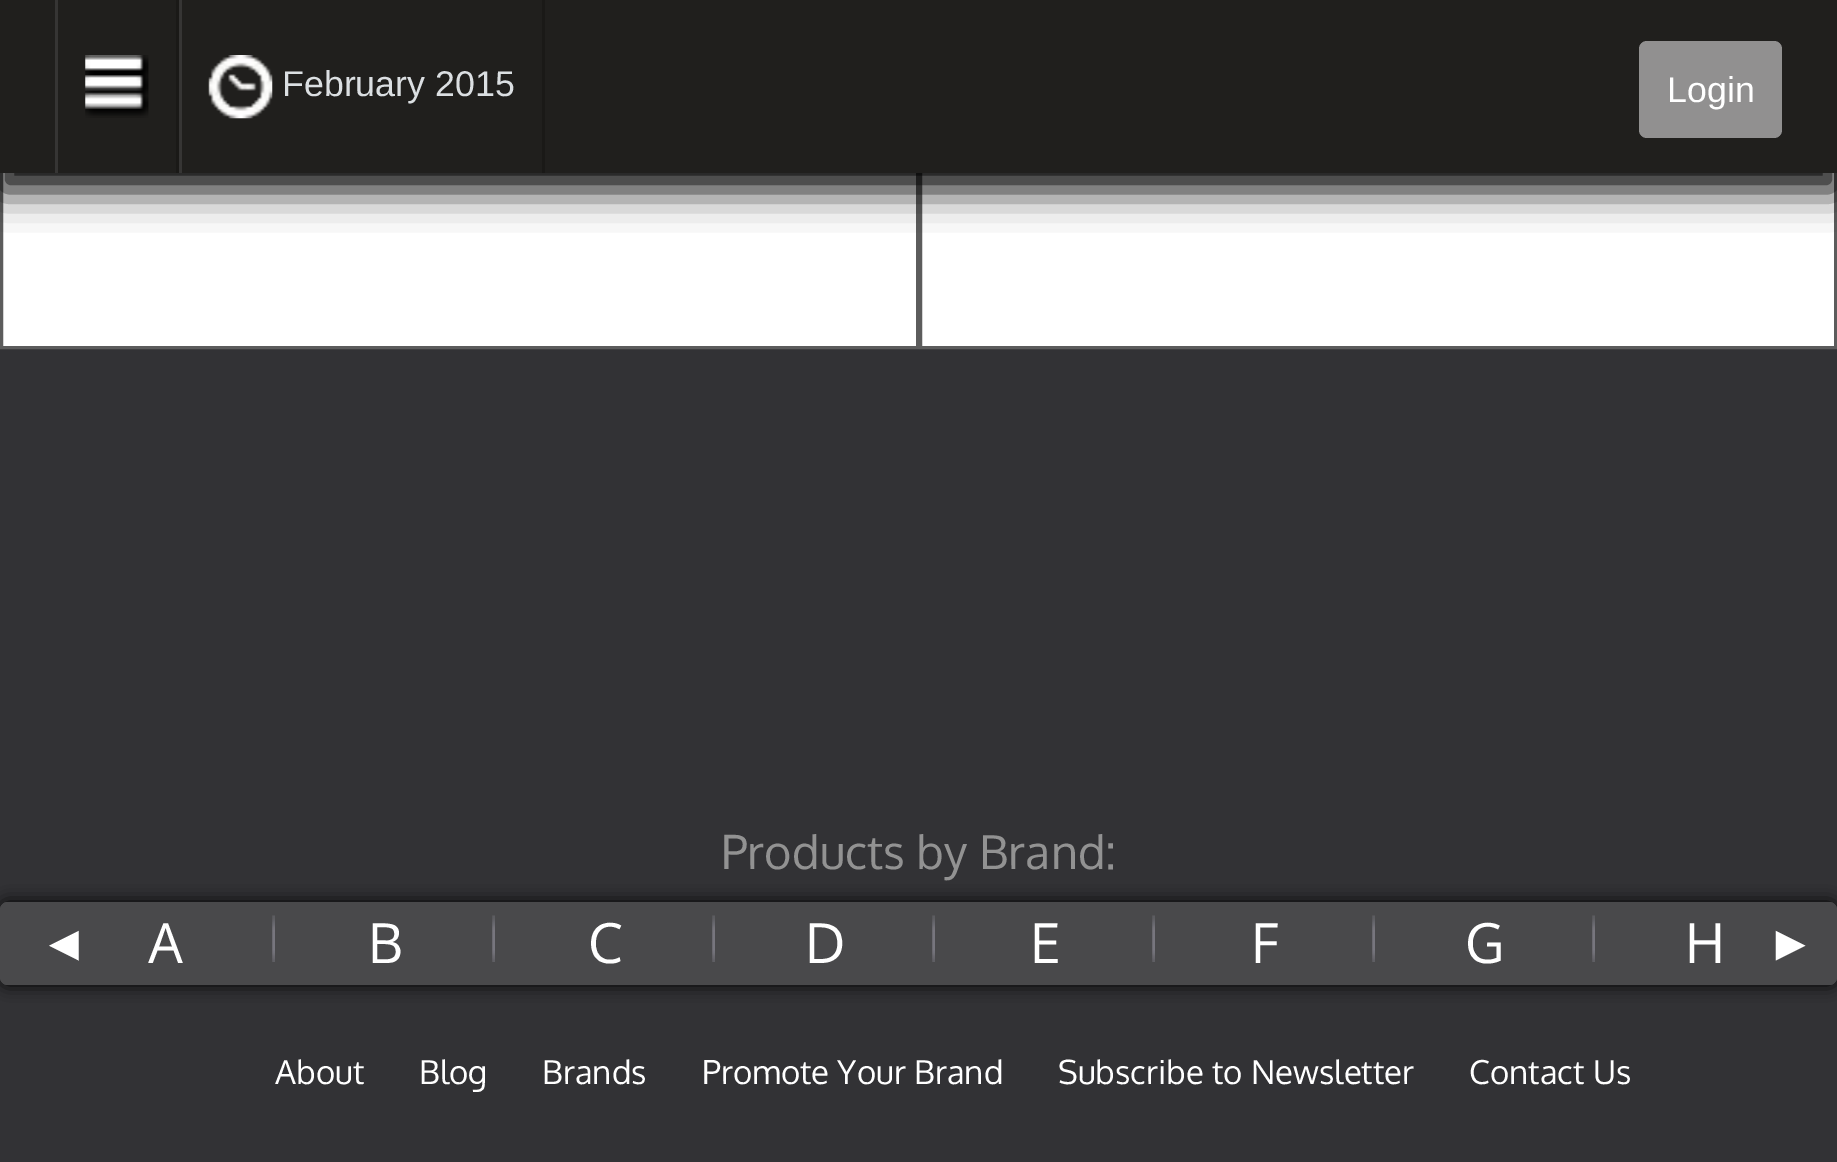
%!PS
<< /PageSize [1837 1162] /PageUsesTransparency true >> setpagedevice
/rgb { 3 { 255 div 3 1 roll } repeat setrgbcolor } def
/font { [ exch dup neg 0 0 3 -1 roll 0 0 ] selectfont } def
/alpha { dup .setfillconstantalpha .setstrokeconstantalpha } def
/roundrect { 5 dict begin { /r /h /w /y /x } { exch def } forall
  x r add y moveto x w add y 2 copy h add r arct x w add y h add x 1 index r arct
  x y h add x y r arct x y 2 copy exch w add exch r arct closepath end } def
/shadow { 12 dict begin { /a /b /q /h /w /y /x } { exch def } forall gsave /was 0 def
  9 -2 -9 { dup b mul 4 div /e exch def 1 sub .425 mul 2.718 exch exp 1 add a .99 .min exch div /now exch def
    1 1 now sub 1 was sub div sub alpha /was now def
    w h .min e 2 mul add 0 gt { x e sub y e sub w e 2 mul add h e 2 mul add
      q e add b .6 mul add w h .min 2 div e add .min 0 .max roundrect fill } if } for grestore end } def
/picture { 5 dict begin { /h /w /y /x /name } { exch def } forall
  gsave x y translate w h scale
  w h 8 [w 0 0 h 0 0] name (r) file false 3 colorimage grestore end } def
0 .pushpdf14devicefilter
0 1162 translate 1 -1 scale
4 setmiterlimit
50 50 53 rgb
0 0 1837 1162 rectfill
255 255 255 rgb
3 173 913 173 rectfill
92 92 92 rgb
3 setlinewidth
1.5 -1.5 916 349 rectstroke
255 255 255 rgb
922 173 912 173 rectfill
92 92 92 rgb
920.5 -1.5 915 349 rectstroke
0 0 0 rgb
0 17 1837 173 0 19 1 shadow
[
  [0 0 1837 173 32 31 29]
  [176 0 3 173 26 25 23]
  [55 0 3 173 54 53 52]
] { aload pop rgb rectfill } forall
(img/1.rgb) 85 55 64 63 picture
26 25 23 rgb
542 0 3 173 rectfill
54 53 52 rgb
179 0 3 173 rectfill
(img/2.rgb) 208 55 65 64 picture
145 144 144 rgb
1639 41 143 97 8 roundrect fill
0 0 0 rgb
0 902 1837 83 8 8 1 shadow
73 73 75 rgb
0 902 1837 83 8 roundrect fill
0 902 116 83 8 roundrect fill
(img/3.rgb) 272 915 3 47 picture
(img/3.rgb) 492 915 3 47 picture
(img/3.rgb) 712 915 3 47 picture
(img/3.rgb) 932 915 3 47 picture
(img/3.rgb) 1152 915 3 47 picture
(img/3.rgb) 1372 915 3 47 picture
(img/3.rgb) 1592 915 3 47 picture
1733 902 104 83 8 roundrect fill
/LiberationSans-Regular 35.75 font
219 223 226 rgb
282 96 moveto (February 2015) show
255 255 255 rgb
1667 102 moveto (Login) show
/Oxygen-Regular 46.75 font
146 146 146 rgb
721 869 moveto (Products by Brand:) show
/LiberationSans-Regular 50 font
255 255 255 rgb
39 960 moveto (◄) show
/Oxygen-Regular 55 font
[
  [(A) 148 963]
  [(B) 368 963]
  [(C) 588 963]
  [(D) 805 963]
  [(E) 1030 963]
  [(F) 1251 963]
  [(G) 1465 963]
  [(H) 1685 963]
] { aload pop moveto show } forall
/LiberationSans-Regular 50 font
1766 960 moveto (►) show
/Oxygen-Regular 33 font
[
  [(About) 275 1084]
  [(Blog) 419 1084]
  [(Brands) 542 1084]
  [(Promote Your Brand) 702 1084]
  [(Subscribe to Newsletter) 1058 1084]
  [(Contact Us) 1469 1084]
] { aload pop moveto show } forall
.poppdf14devicefilter showpage
